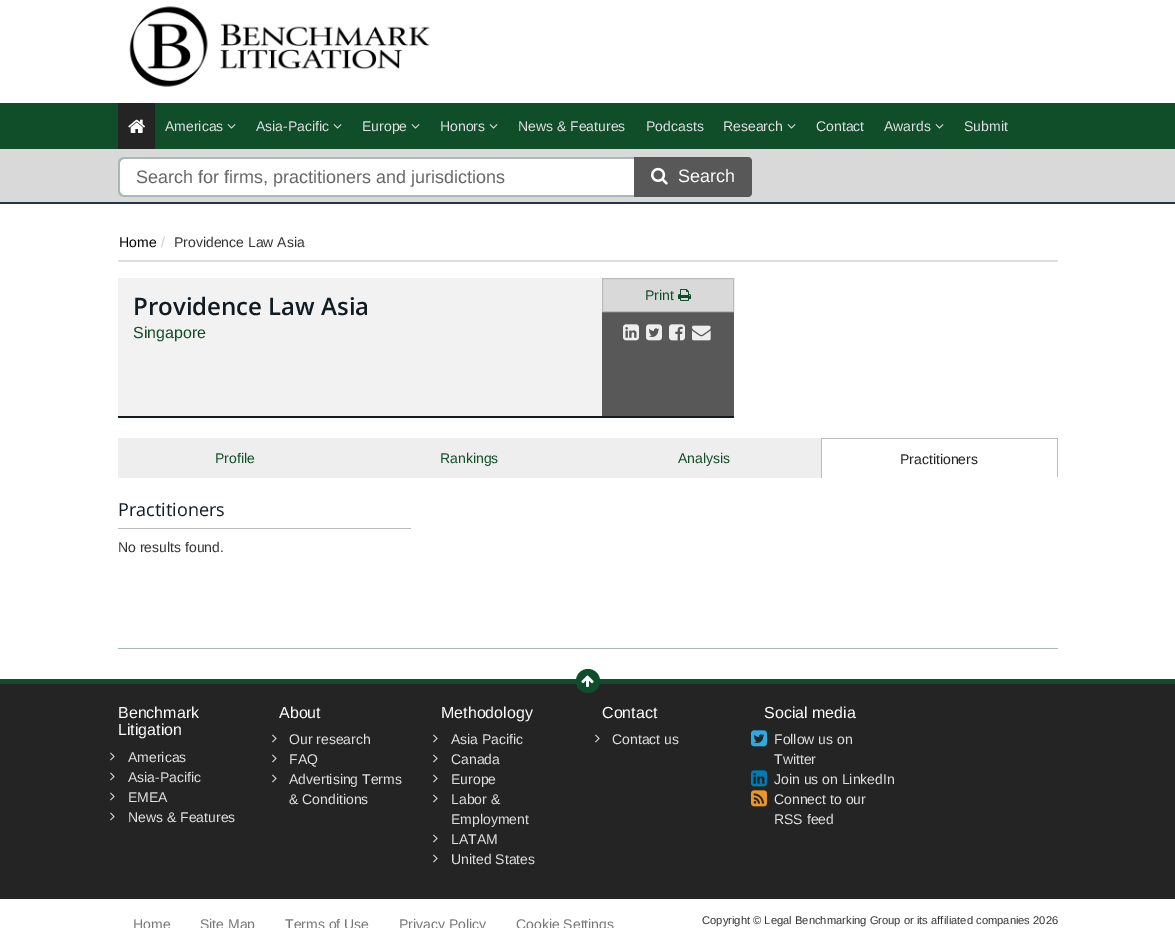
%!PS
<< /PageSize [1175 928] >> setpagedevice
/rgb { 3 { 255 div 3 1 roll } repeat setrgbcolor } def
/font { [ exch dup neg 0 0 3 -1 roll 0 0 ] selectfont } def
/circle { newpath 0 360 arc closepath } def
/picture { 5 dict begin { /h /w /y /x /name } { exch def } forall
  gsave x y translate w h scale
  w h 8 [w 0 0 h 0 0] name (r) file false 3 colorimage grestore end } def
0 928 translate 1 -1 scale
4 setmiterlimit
255 255 255 rgb
0 0 1175 928 rectfill
(img/1.rgb) 129 6 301 81 picture
16 78 42 rgb
0 103 1175 46 rectfill
36 36 36 rgb
118 103 37 46 rectfill
(img/2.rgb) 128 119 17 14 picture
(img/3.rgb) 227 124 9 5 picture
(img/3.rgb) 333 124 9 5 picture
(img/3.rgb) 411 124 9 5 picture
(img/3.rgb) 489 124 9 5 picture
(img/3.rgb) 787 124 9 5 picture
(img/3.rgb) 935 124 9 5 picture
217 217 217 rgb
0 149 1175 53 rectfill
36 52 79 rgb
0 202 1175 2 rectfill
255 255 255 rgb
124 159 moveto 634 159 lineto 634 195 lineto 124 195 lineto 122 195 120 193 120 191 curveto 120 163 lineto 120 161 122 159 124 159 curveto closepath fill
171 184 184 rgb
124 157 moveto 634 157 lineto 634 197 lineto 124 197 lineto 121 197 118 194 118 191 curveto 118 163 lineto 118 160 121 157 124 157 curveto closepath 124 159 moveto 634 159 lineto 634 195 lineto 124 195 lineto 122 195 120 193 120 191 curveto 120 163 lineto 120 161 122 159 124 159 curveto closepath eofill
88 88 89 rgb
634 157 moveto 748 157 lineto 750 157 752 159 752 161 curveto 752 193 lineto 752 195 750 197 748 197 curveto 634 197 lineto closepath fill
(img/4.rgb) 651 167 17 18 picture
[
  [118 260 940 2 221 221 221]
  [602 312 132 104 88 88 89]
  [118 416 616 2 17 27 34]
  [118 278 484 138 242 242 242]
] { aload pop rgb rectfill } forall
217 217 217 rgb
602.5 278.5 moveto 733.5 278.5 lineto 733.5 311.5 lineto 602.5 311.5 lineto closepath gsave fill grestore
187 187 187 rgb
stroke
(img/5.rgb) 678 289 13 12 picture
(img/6.rgb) 623 324 16 17 picture
(img/7.rgb) 646 324 16 17 picture
(img/8.rgb) 669 324 16 17 picture
(img/9.rgb) 692 325 19 16 picture
[
  [118 648 940 1 171 184 184]
  [118 438 703 40 238 238 238]
  [821 438 237 1 187 187 187]
  [1057 438 1 40 187 187 187]
  [1057 477 1 1 255 255 255]
  [821 438 1 40 187 187 187]
  [118 528 293 1 187 187 187]
  [0 684 1175 215 36 36 36]
  [0 679 1175 5 16 77 42]
] { aload pop rgb rectfill } forall
588 681 12 circle fill
(img/10.rgb) 581 675 13 12 picture
(img/11.rgb) 110 752 5 9 picture
(img/11.rgb) 110 772 5 9 picture
(img/11.rgb) 110 792 5 9 picture
(img/11.rgb) 110 812 5 9 picture
(img/11.rgb) 272 734 5 9 picture
(img/11.rgb) 272 754 5 9 picture
(img/11.rgb) 272 774 5 9 picture
(img/11.rgb) 433 734 5 9 picture
(img/11.rgb) 433 754 5 9 picture
(img/11.rgb) 433 774 5 9 picture
(img/11.rgb) 433 794 5 9 picture
(img/11.rgb) 433 834 5 9 picture
(img/11.rgb) 433 854 5 9 picture
(img/11.rgb) 595 734 5 9 picture
(img/12.rgb) 751 730 16 17 picture
(img/13.rgb) 751 770 16 17 picture
(img/14.rgb) 751 790 16 17 picture
/LiberationSans-Regular 14 font
224 224 224 rgb
[
  [(Americas) 165 131]
  [(Asia-Pacific) 256 131]
  [(Europe) 362 131]
  [(Honors) 440 131]
  [(News & Features) 518 131]
  [(Podcasts) 646 131]
  [(Research) 723 131]
  [(Contact) 816 131]
  [(Awards) 884 131]
  [(Submit) 964 131]
] { aload pop moveto show } forall
/LiberationSans-Regular 18 font
102 102 102 rgb
136 183 moveto (Search for firms, practitioners and jurisdictions) show
255 255 255 rgb
678 182 moveto (Search) show
/LiberationSans-Regular 14 font
0 0 0 rgb
119 247 moveto (Home) show
204 204 204 rgb
161 247 moveto (/) show
51 51 51 rgb
174 247 moveto (Providence Law Asia) show
/OpenSans-SemiBold 24 font
17 27 34 rgb
133 315 moveto (Providence Law Asia) show
/LiberationSans-Regular 16 font
16 77 42 rgb
133 338 moveto (Singapore) show
/LiberationSans-Regular 14 font
[
  [(Print) 645 300]
  [(Profile) 215 463]
  [(Rankings) 440 463]
  [(Analysis) 678 463]
] { aload pop moveto show } forall
34 34 34 rgb
900 464 moveto (Practitioners) show
/OpenSans-Regular 18 font
17 27 34 rgb
118 516 moveto (Practitioners) show
/LiberationSans-Regular 14 font
51 51 51 rgb
118 552 moveto (No results found.) show
/LiberationSans-Regular 16 font
255 255 255 rgb
118 718 moveto (Benchmark) show
118 735 moveto (Litigation) show
/LiberationSans-Regular 14 font
224 224 224 rgb
[
  [(Americas) 128 762]
  [(Asia-Pacific) 128 782]
  [(EMEA) 128 802]
  [(News & Features) 128 822]
] { aload pop moveto show } forall
/LiberationSans-Regular 16 font
255 255 255 rgb
279 718 moveto (About) show
/LiberationSans-Regular 14 font
224 224 224 rgb
[
  [(Our research) 289 744]
  [(FAQ) 289 764]
  [(Advertising Terms) 289 784]
  [(& Conditions) 289 804]
] { aload pop moveto show } forall
/LiberationSans-Regular 16 font
255 255 255 rgb
441 718 moveto (Methodology) show
/LiberationSans-Regular 14 font
224 224 224 rgb
[
  [(Asia Pacific) 451 744]
  [(Canada) 451 764]
  [(Europe) 451 784]
  [(Labor &) 451 804]
  [(Employment) 451 824]
  [(LATAM) 451 844]
  [(United States) 451 864]
] { aload pop moveto show } forall
/LiberationSans-Regular 16 font
255 255 255 rgb
602 718 moveto (Contact) show
/LiberationSans-Regular 14 font
224 224 224 rgb
612 744 moveto (Contact us) show
/LiberationSans-Regular 16 font
255 255 255 rgb
764 718 moveto (Social media) show
/LiberationSans-Regular 14 font
224 224 224 rgb
[
  [(Follow us on) 774 744]
  [(Twitter) 774 764]
  [(Join us on LinkedIn) 774 784]
  [(Connect to our) 774 804]
  [(RSS feed) 774 824]
] { aload pop moveto show } forall
119 119 119 rgb
[
  [(Home) 133 929]
  [(Site Map) 200 929]
  [(Terms of Use) 285 929]
  [(Privacy Policy) 399 929]
  [(Cookie Settings) 516 929]
] { aload pop moveto show } forall
/LiberationSans-Regular 11.2 font
51 51 51 rgb
702 924 moveto (Copyright © Legal Benchmarking Group or its affiliated companies 2026) show
showpage
